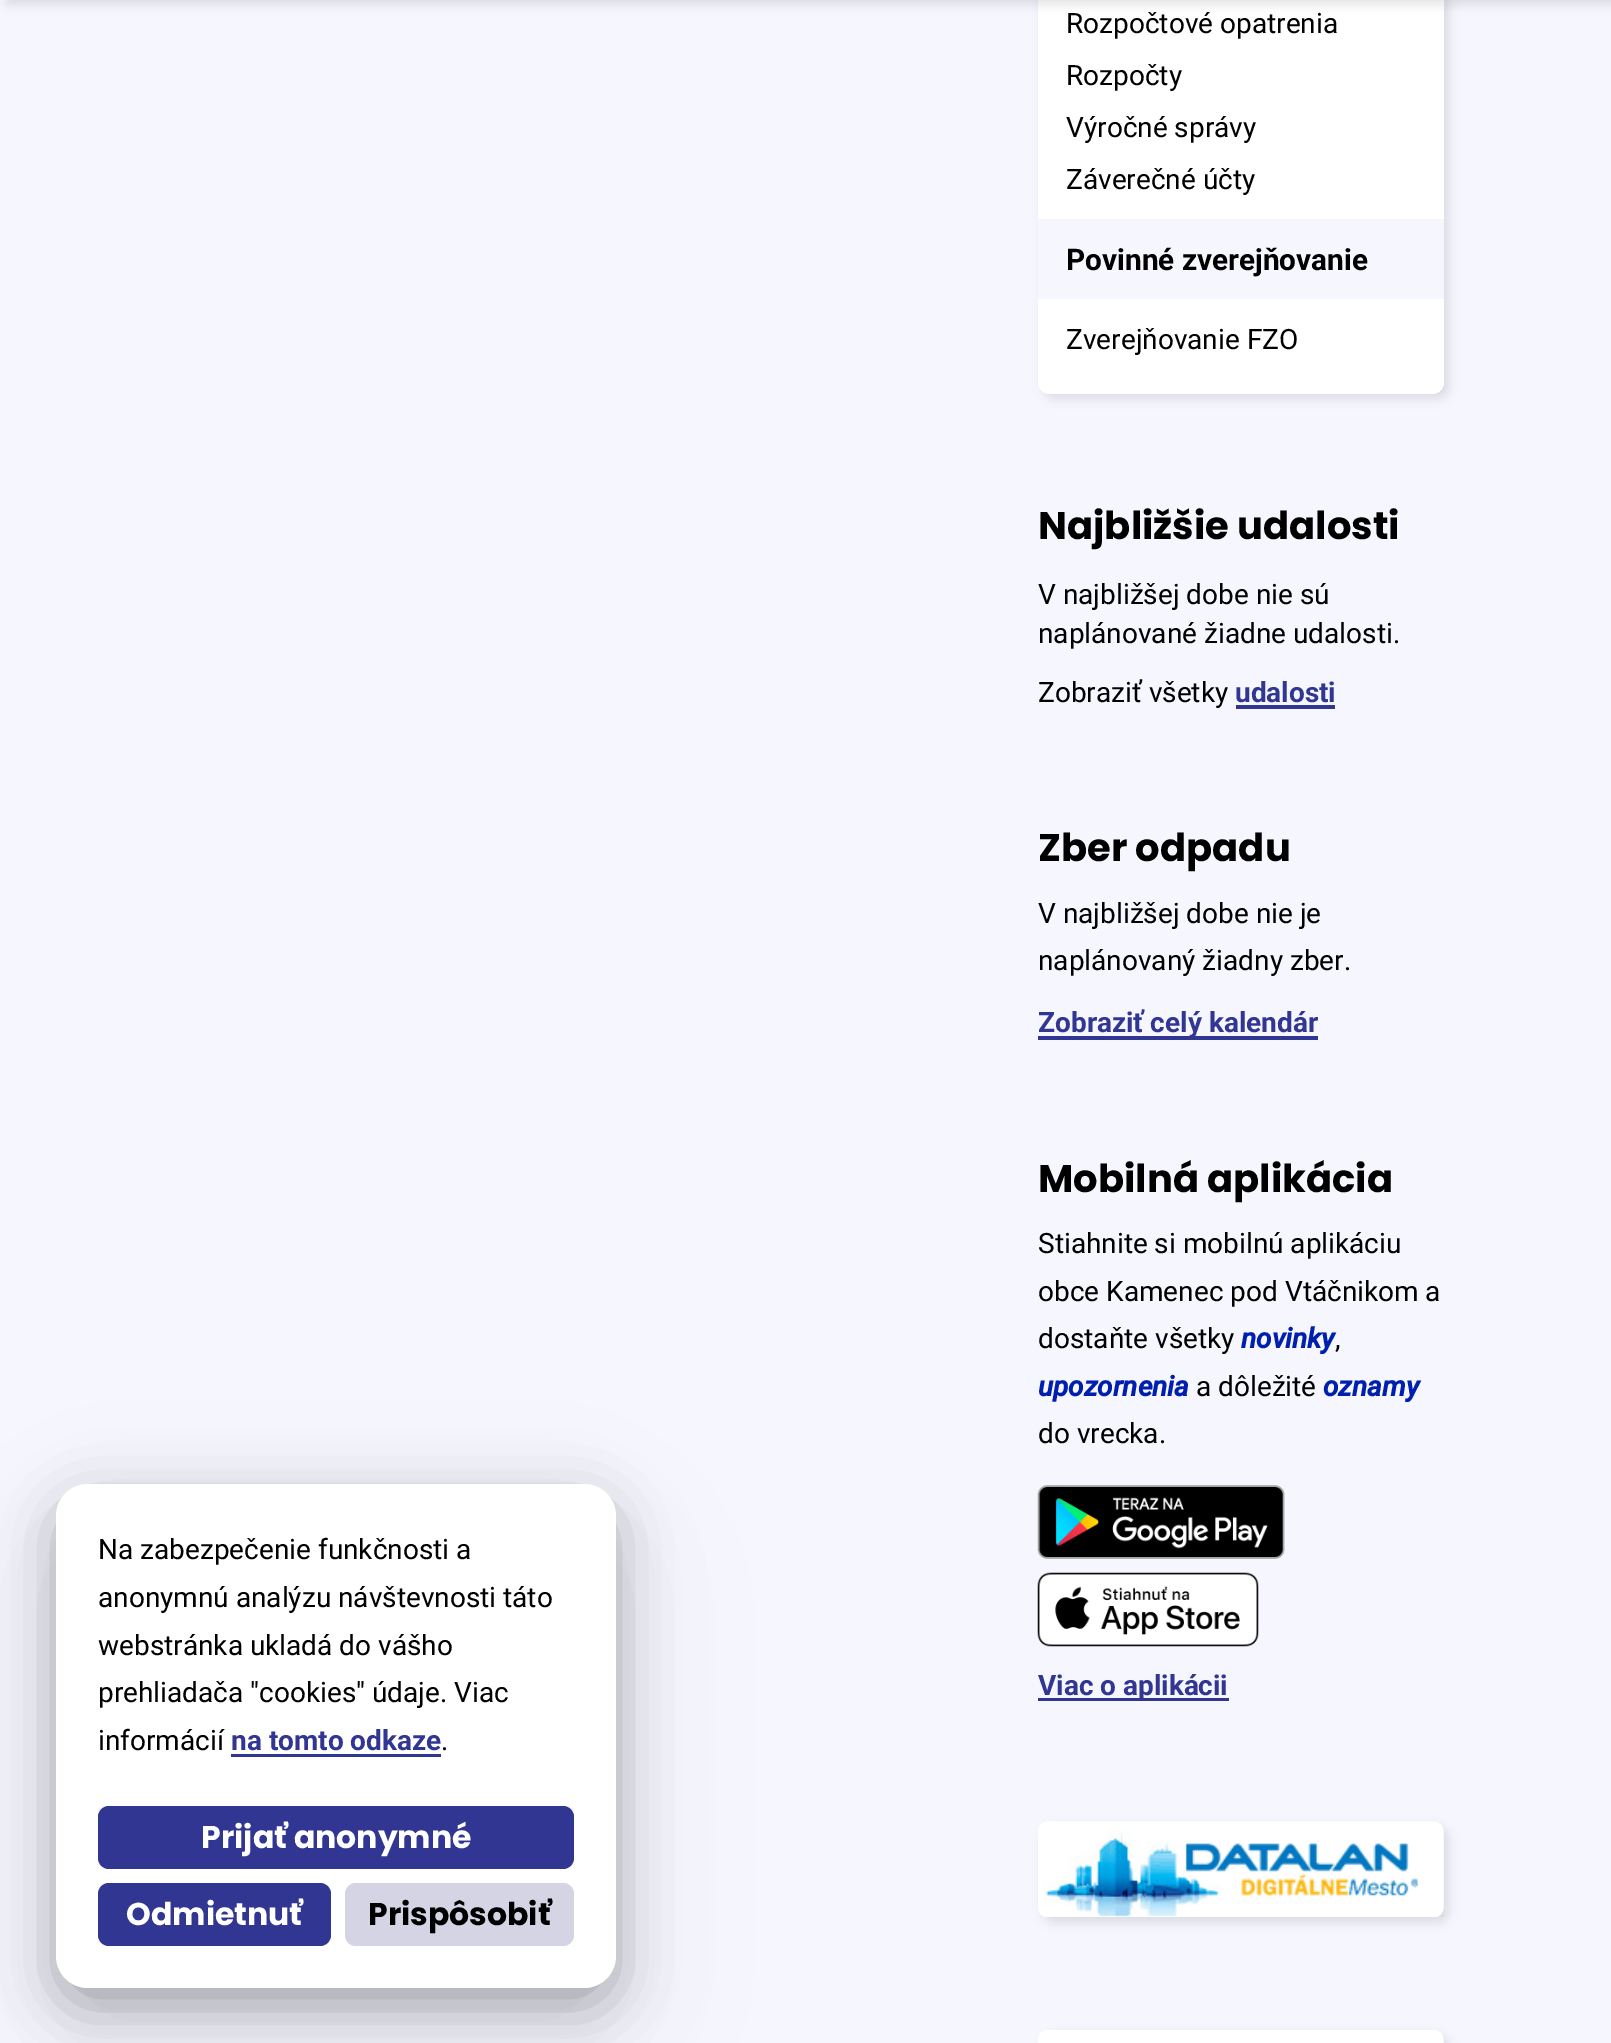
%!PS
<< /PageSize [1611 2043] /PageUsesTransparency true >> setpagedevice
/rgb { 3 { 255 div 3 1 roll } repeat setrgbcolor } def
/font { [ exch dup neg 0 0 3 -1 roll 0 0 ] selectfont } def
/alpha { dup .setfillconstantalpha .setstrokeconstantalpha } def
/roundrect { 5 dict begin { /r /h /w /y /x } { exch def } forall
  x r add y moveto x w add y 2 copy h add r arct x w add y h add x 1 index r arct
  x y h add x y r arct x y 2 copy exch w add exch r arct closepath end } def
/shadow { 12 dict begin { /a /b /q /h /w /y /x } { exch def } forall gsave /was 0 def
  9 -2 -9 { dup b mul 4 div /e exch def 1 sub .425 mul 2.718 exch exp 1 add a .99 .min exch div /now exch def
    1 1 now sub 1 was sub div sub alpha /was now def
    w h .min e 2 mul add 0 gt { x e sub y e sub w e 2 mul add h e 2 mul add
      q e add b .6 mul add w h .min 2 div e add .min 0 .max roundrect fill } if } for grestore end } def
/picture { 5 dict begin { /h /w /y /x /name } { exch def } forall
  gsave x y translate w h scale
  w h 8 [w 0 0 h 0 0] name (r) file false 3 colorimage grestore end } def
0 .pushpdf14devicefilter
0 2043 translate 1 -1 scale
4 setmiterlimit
246 246 255 rgb
0 0 1611 2043 rectfill
0 0 0 rgb
56 1537 560 504 32 79 0.05 shadow
56 1519 560 504 32 52.5 0.05 shadow
56 1502 560 504 32 26 0.25 shadow
255 255 255 rgb
56 1484 560 504 32 roundrect fill
49 54 146 rgb
231 1754 210 3 rectfill
98 1806 476 63 11 roundrect fill
98 1883 233 63 11 roundrect fill
212 212 228 rgb
345 1883 229 63 11 roundrect fill
0 0 0 rgb
1043 -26 406 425 11 5 0.1 shadow
gsave
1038 -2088 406 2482 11 roundrect clip newpath
1043 -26 406 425 11 5 0.1 shadow
grestore
255 255 255 rgb
1038 -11 moveto 1444 -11 lineto 1444 383 lineto 1444 389 1439 394 1433 394 curveto 1049 394 lineto 1043 394 1038 389 1038 383 curveto closepath fill
0 0 0 rgb
7 -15 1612 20 0 5 0.1 shadow
[
  [1038 219 406 80 246 246 255]
  [1236 705 99 4 49 54 146]
  [1038 1036 280 4 49 54 146]
] { aload pop rgb rectfill } forall
(img/1.rgb) 1037 1485 248 74 picture
(img/2.rgb) 1037 1572 222 75 picture
1038 1698 191 3 rectfill
0 0 0 rgb
1043 1827 406 96 11 5 0.1 shadow
(img/3.rgb) 1038 1821 406 96 picture
1043 2035 406 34 11 5 0.1 shadow
(img/4.rgb) 1038 2030 406 13 picture
/Roboto-Regular 28 font
[
  [(Na zabezpečenie funkčnosti a) 98 1559]
  [(anonymnú analýzu návštevnosti táto) 98 1607]
  [(webstránka ukladá do vášho) 98 1655]
  [(prehliadača "cookies" údaje. Viac) 98 1702]
  [(informácií) 98 1750]
] { aload pop moveto show } forall
/Roboto-Bold 28 font
49 54 146 rgb
231 1750 moveto (na tomto odkaze) show
/Roboto-Regular 28 font
0 0 0 rgb
441 1750 moveto (.) show
/Poppins-Bold 31.5 font
255 255 255 rgb
201 1848 moveto (Prijať anonymné) show
126 1925 moveto (Odmietnuť) show
0 0 0 rgb
368 1925 moveto (Prispôsobiť) show
/Roboto-Regular 28 font
[
  [(Rozpočtové opatrenia) 1066 33]
  [(Rozpočty) 1066 85]
  [(Výročné správy) 1066 137]
  [(Záverečné účty) 1066 189]
] { aload pop moveto show } forall
/Roboto-Bold 29.75 font
1066 270 moveto (Povinné zverejňovanie) show
/Roboto-Regular 28 font
1066 349 moveto (Zverejňovanie FZO) show
/Poppins-Bold 38.5 font
1038 539 moveto (Najbližšie udalosti) show
/Roboto-Regular 28 font
[
  [(V najbližšej dobe nie sú) 1038 604]
  [(naplánované žiadne udalosti.) 1038 643]
  [(Zobraziť všetky) 1038 702]
] { aload pop moveto show } forall
/Roboto-Bold 28 font
49 54 146 rgb
1235 702 moveto (udalosti) show
/Poppins-Bold 38.5 font
0 0 0 rgb
1038 861 moveto (Zber odpadu) show
/Roboto-Regular 28 font
1038 923 moveto (V najbližšej dobe nie je) show
1038 970 moveto (naplánovaný žiadny zber.) show
/Roboto-Bold 28 font
49 54 146 rgb
1038 1032 moveto (Zobraziť celý kalendár) show
/Poppins-Bold 38.5 font
0 0 0 rgb
1038 1192 moveto (Mobilná aplikácia) show
/Roboto-Regular 28 font
[
  [(Stiahnite si mobilnú aplikáciu) 1038 1253]
  [(obce Kamenec pod Vtáčnikom a) 1038 1301]
  [(dostaňte všetky) 1038 1348]
] { aload pop moveto show } forall
/Roboto-BoldItalic 28 font
0 31 175 rgb
1241 1348 moveto (novinky) show
/Roboto-Regular 28 font
0 0 0 rgb
1335 1348 moveto (,) show
/Roboto-BoldItalic 28 font
0 31 175 rgb
1038 1396 moveto (upozornenia) show
/Roboto-Regular 28 font
0 0 0 rgb
1196 1396 moveto (a dôležité) show
/Roboto-BoldItalic 28 font
0 31 175 rgb
1323 1396 moveto (oznamy) show
/Roboto-Regular 28 font
0 0 0 rgb
1038 1443 moveto (do vrecka.) show
/Roboto-Bold 28 font
49 54 146 rgb
1038 1695 moveto (Viac o aplikácii) show
.poppdf14devicefilter showpage
